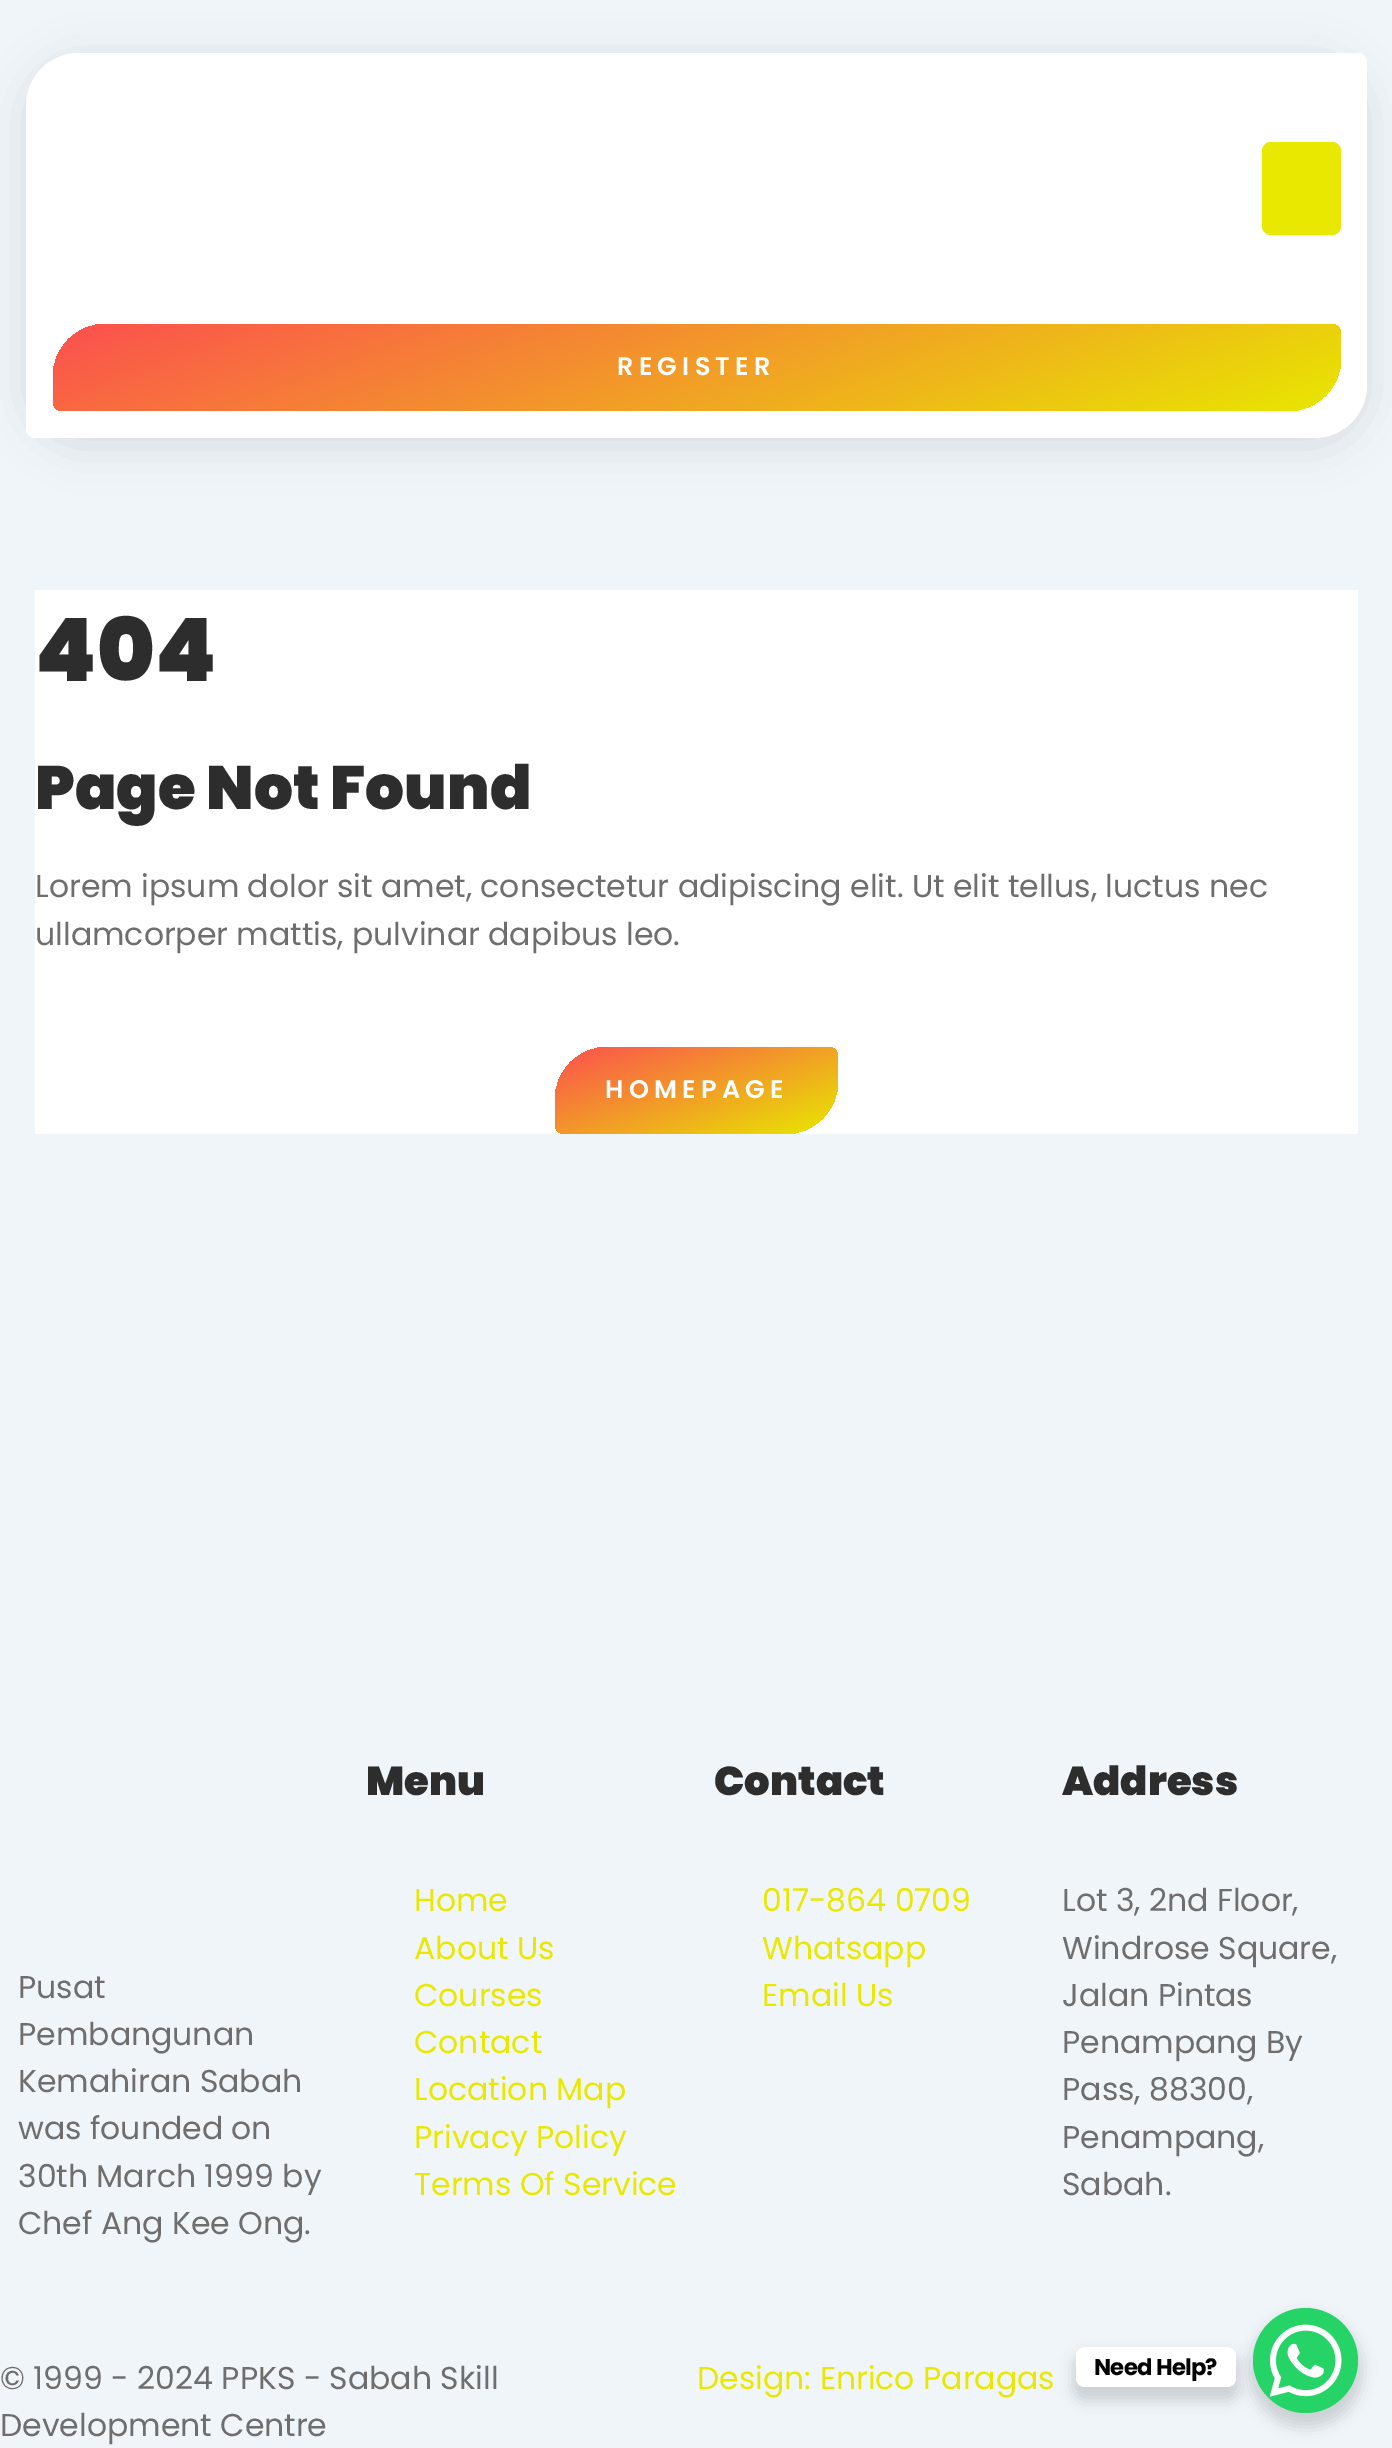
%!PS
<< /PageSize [1392 2448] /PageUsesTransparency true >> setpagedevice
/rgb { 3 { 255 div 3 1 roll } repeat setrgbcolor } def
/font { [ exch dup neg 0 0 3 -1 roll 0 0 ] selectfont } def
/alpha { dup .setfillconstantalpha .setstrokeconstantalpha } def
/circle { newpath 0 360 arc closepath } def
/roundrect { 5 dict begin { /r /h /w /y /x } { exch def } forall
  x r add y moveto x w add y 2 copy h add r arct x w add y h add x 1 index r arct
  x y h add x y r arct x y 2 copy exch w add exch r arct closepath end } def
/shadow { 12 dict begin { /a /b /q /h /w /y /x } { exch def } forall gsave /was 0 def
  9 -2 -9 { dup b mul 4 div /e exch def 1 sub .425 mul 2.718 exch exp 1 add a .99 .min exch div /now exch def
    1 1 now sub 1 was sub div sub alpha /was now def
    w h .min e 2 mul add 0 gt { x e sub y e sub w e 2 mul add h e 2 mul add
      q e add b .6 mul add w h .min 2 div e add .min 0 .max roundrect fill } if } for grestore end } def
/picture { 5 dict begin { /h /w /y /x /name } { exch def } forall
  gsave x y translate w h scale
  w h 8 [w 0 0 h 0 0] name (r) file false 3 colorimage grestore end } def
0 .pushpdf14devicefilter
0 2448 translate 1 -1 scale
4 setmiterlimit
240 245 250 rgb
0 0 1392 2448 rectfill
0 0 0 rgb
26 61 1341 385 53 22 0.1 shadow
255 255 255 rgb
79 53 moveto 1358 53 lineto 1363 53 1367 57 1367 62 curveto 1367 385 lineto 1367 414.5 1343.5 438 1314 438 curveto 35 438 lineto 30 438 26 434 26 429 curveto 26 106 lineto 26 76.5 49.5 53 79 53 curveto closepath fill
232 232 0 rgb
1262 142 79 93 9 roundrect fill
gsave 106 324 moveto 1332 324 lineto 1337 324 1341 328 1341 333 curveto 1341 358 lineto 1341 387.5 1317.5 411 1288 411 curveto 62 411 lineto 57 411 53 407 53 402 curveto 53 377 lineto 53 347.5 76.5 324 106 324 curveto closepath clip newpath
<< /ShadingType 2 /ColorSpace /DeviceRGB /Coords [607 122 786 613] /Extend [true true] /Function << /FunctionType 2 /Domain [0 1] /C0 [0.988 0.31 0.31] /C1 [0.91 0.91 0] /N 1 >> >> shfill grestore
255 255 255 rgb
35 590 1323 544 rectfill
gsave 608 1047 moveto 829 1047 lineto 834 1047 838 1051 838 1056 curveto 838 1081 lineto 838 1110.5 814.5 1134 785 1134 curveto 564 1134 lineto 559 1134 555 1130 555 1125 curveto 555 1100 lineto 555 1070.5 578.5 1047 608 1047 curveto closepath clip newpath
<< /ShadingType 2 /ColorSpace /DeviceRGB /Coords [666 1006 727 1174] /Extend [true true] /Function << /FunctionType 2 /Domain [0 1] /C0 [0.988 0.31 0.31] /C1 [0.91 0.91 0] /N 1 >> >> shfill grestore
0 0 0 rgb
1250 2315 112 112 56 7 0.15 shadow
37 211 102 rgb
1305.5 2360.5 52.5 circle fill
0 0 0 rgb
1073 2354 166 47 12 7 0.15 shadow
255 255 255 rgb
1076 2347 160 40 9 roundrect fill
(img/1.rgb) 1269 2324 73 73 picture
/Poppins-SemiBold 25.5 font
617 375 moveto 5.25 0 (REGISTER) ashow
/Poppins-Black 87.5 font
45 45 45 rgb
35 681 moveto (404) show
/Poppins-Black 61.25 font
35 809 moveto (Page Not Found) show
/Poppins-Regular 31.5 font
110 110 110 rgb
35 897 moveto (Lorem ipsum dolor sit amet, consectetur adipiscing elit. Ut elit tellus, luctus nec) show
35 945 moveto (ullamcorper mattis, pulvinar dapibus leo.) show
/Poppins-SemiBold 25.5 font
255 255 255 rgb
605 1098 moveto 5.25 0 (HOMEPAGE) ashow
/Poppins-Black 40.25 font
45 45 45 rgb
366 1795 moveto (Menu) show
/Poppins-Regular 31.5 font
232 232 0 rgb
[
  [(Home) 414 1911]
  [(About Us) 414 1959]
  [(Courses) 414 2006]
  [(Contact) 414 2053]
  [(Location Map) 414 2100]
  [(Privacy Policy) 414 2148]
  [(Terms Of Service) 414 2195]
] { aload pop moveto show } forall
/Poppins-Black 40.25 font
45 45 45 rgb
714 1795 moveto (Contact) show
/Poppins-Regular 31.5 font
232 232 0 rgb
[
  [(017-864 0709) 762 1911]
  [(Whatsapp) 762 1959]
  [(Email Us) 762 2006]
] { aload pop moveto show } forall
/Poppins-Black 40.25 font
45 45 45 rgb
1062 1795 moveto (Address) show
/Poppins-Regular 31.5 font
110 110 110 rgb
[
  [(Lot 3, 2nd Floor,) 1062 1911]
  [(Windrose Square,) 1062 1959]
  [(Jalan Pintas) 1062 2006]
  [(Penampang By) 1062 2053]
  [(Pass, 88300,) 1062 2100]
  [(Penampang,) 1062 2148]
  [(Sabah.) 1062 2195]
  [(Pusat) 18 1998]
  [(Pembangunan) 18 2045]
  [(Kemahiran Sabah) 18 2092]
  [(was founded on) 18 2139]
  [(30th March 1999 by) 18 2187]
  [(Chef Ang Kee Ong.) 18 2234]
  [(© 1999 - 2024 PPKS - Sabah Skill) 0 2389]
  [(Development Centre) 0 2436]
] { aload pop moveto show } forall
232 232 0 rgb
697 2389 moveto (Design: Enrico Paragas) show
/Poppins-Bold 22.75 font
0 0 0 rgb
1094 2375 moveto -0.75 0 (Need Help?) ashow
.poppdf14devicefilter showpage
